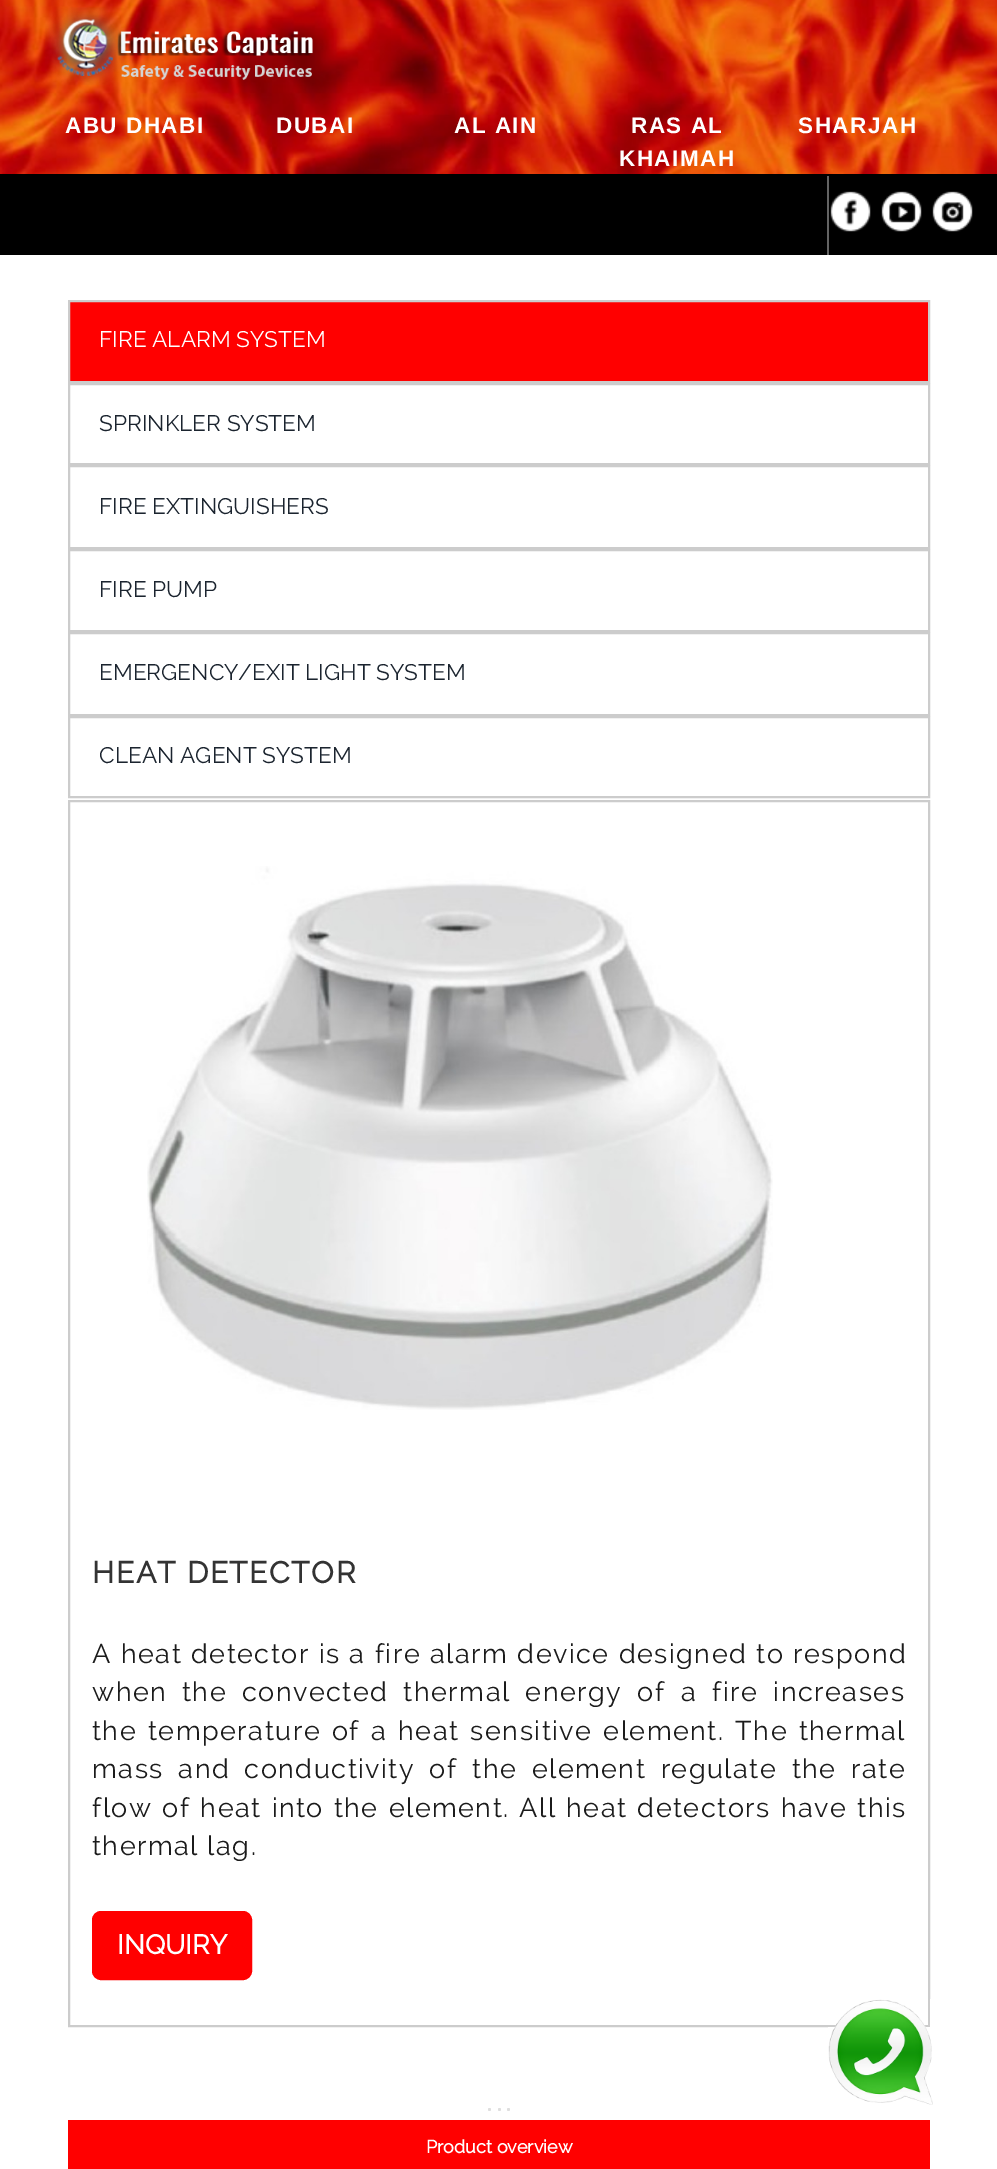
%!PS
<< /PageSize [997 2169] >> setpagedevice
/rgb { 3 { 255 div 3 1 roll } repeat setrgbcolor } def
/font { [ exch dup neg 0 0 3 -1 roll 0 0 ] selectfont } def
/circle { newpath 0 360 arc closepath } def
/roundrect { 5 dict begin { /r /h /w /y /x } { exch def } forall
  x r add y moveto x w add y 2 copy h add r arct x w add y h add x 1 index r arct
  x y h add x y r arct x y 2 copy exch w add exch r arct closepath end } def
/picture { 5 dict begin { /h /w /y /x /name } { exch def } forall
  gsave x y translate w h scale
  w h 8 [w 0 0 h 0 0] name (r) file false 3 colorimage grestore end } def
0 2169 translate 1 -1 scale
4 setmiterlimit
255 255 255 rgb
0 0 997 2169 rectfill
(img/1.rgb) 0 0 997 174 picture
(img/2.rgb) 45 7 268 78 picture
0 0 0 rgb
0 174 997 81 rectfill
99 99 99 rgb
827 176 2 79 rectfill
(img/3.rgb) 830 191 41 41 picture
(img/4.rgb) 881 191 41 41 picture
(img/5.rgb) 932 191 41 41 picture
255 0 0 rgb
69 301 moveto 929 301 lineto 929 382 lineto 69 382 lineto closepath gsave fill grestore
204 204 204 rgb
2 setlinewidth
stroke
69 384 860 80 rectstroke
69 466 860 82 rectstroke
69 550 860 81 rectstroke
69 633 860 82 rectstroke
69 717 860 80 rectstroke
69 801 860 1225 rectstroke
(img/6.rgb) 147 866 626 544 picture
255 0 0 rgb
93 1912 158 67 8 roundrect gsave fill grestore
stroke
222 222 222 rgb
489.5 2109.5 1.5 circle fill
499.5 2109.5 1.5 circle fill
508.5 2109.5 1.5 circle fill
255 0 0 rgb
68 2120 862 49 rectfill
(img/7.rgb) 828 1999 105 106 picture
/LiberationSans-Bold 22.5 font
255 255 255 rgb
65 133 moveto 1.5 0 (ABU DHABI) ashow
276 133 moveto 1.5 0 (DUBAI) ashow
454 133 moveto 1.5 0 (AL AIN) ashow
631 133 moveto 1.5 0 (RAS AL) ashow
619 166 moveto 1.5 0 (KHAIMAH) ashow
798 133 moveto 1.5 0 (SHARJAH) ashow
/Raleway-Regular 22.5 font
99 347 moveto (FIRE ALARM SYSTEM) show
27 36 47 rgb
[
  [(SPRINKLER SYSTEM) 99 431]
  [(FIRE EXTINGUISHERS) 99 514]
  [(FIRE PUMP) 99 597]
  [(EMERGENCY/EXIT LIGHT SYSTEM) 99 680]
  [(CLEAN AGENT SYSTEM) 99 763]
] { aload pop moveto show } forall
/Raleway-Bold 30 font
51 51 51 rgb
92 1583 moveto 1.5 0 (HEAT DETECTOR) ashow
/Raleway-Regular 27 font
27 27 27 rgb
92 1663 moveto 0.5 0 32 1.5 0 (A heat detector is a fire alarm device designed to respond) awidthshow
92 1701 moveto 6.5 0 32 1.5 0 (when the convected thermal energy of a fire increases) awidthshow
92 1740 moveto 2.5 0 32 1.5 0 (the temperature of a heat sensitive element. The thermal) awidthshow
92 1778 moveto 6 0 32 1.5 0 (mass and conductivity of the element regulate the rate) awidthshow
92 1817 moveto 1.4 0 32 1.5 0 (flow of heat into the element. All heat detectors have this) awidthshow
92 1855 moveto 1.5 0 (thermal lag.) ashow
/Raleway-Bold 27 font
255 255 255 rgb
117 1954 moveto (INQUIRY) show
/Raleway-Bold 18 font
426 2153 moveto (Product overview) show
showpage
